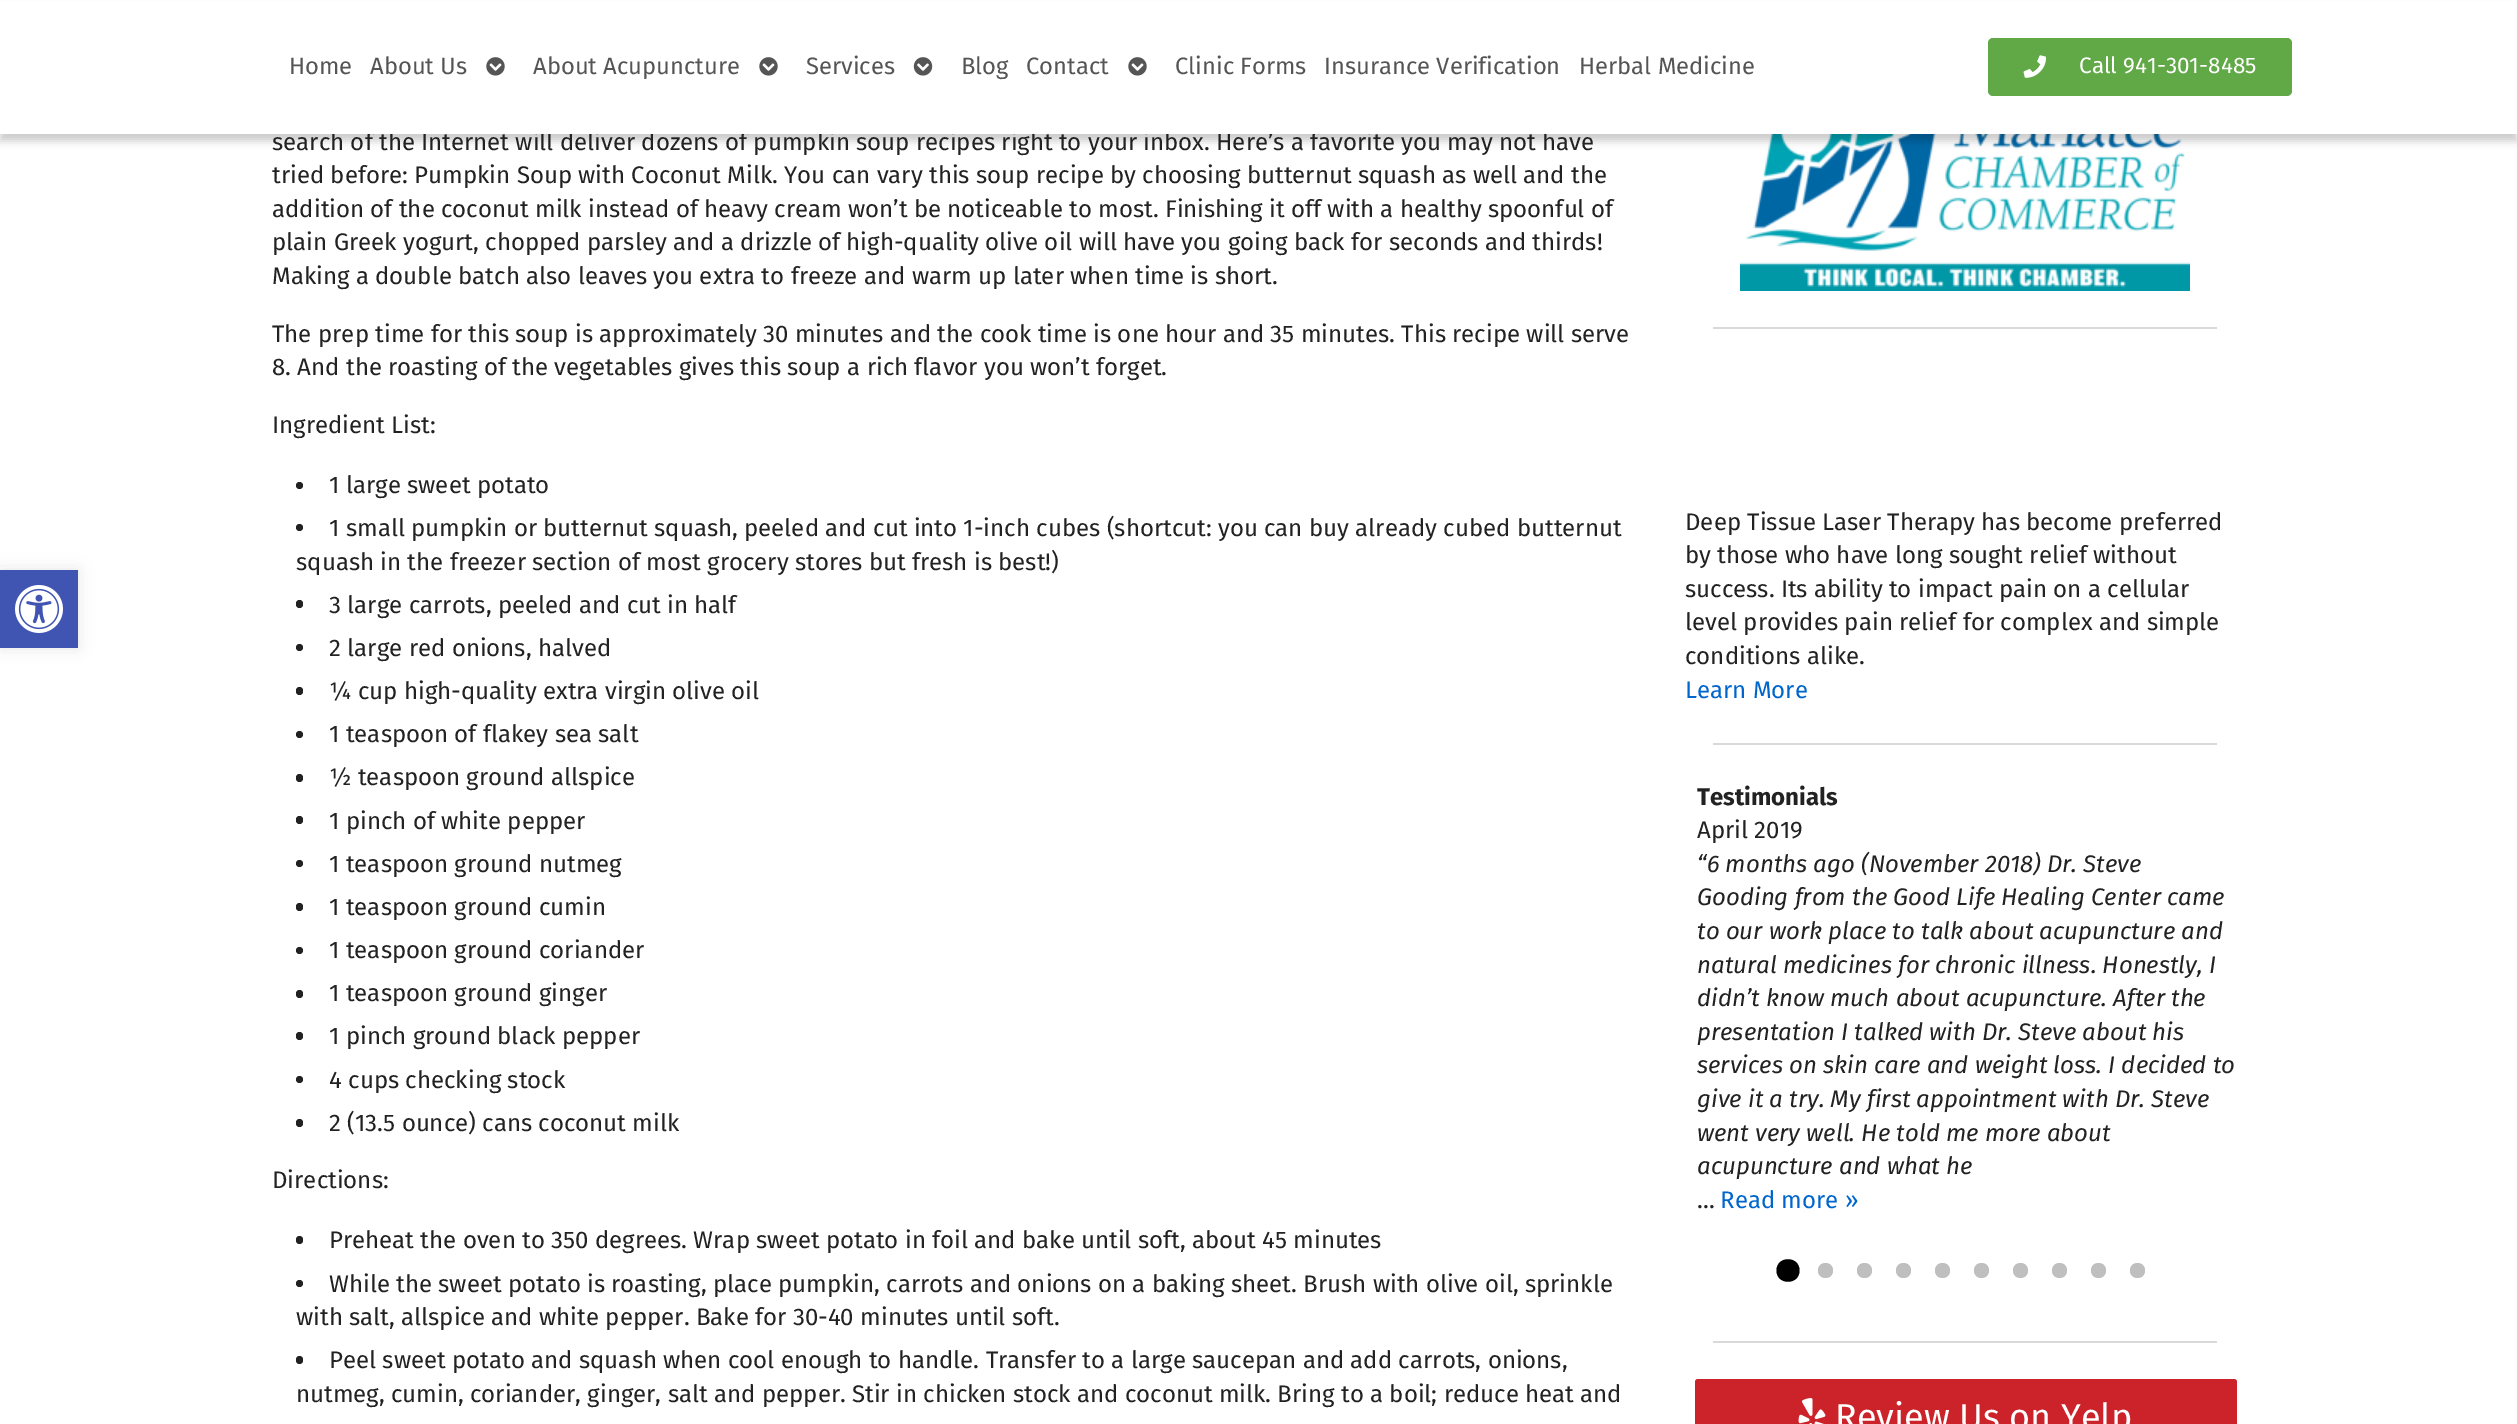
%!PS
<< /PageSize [2517 1424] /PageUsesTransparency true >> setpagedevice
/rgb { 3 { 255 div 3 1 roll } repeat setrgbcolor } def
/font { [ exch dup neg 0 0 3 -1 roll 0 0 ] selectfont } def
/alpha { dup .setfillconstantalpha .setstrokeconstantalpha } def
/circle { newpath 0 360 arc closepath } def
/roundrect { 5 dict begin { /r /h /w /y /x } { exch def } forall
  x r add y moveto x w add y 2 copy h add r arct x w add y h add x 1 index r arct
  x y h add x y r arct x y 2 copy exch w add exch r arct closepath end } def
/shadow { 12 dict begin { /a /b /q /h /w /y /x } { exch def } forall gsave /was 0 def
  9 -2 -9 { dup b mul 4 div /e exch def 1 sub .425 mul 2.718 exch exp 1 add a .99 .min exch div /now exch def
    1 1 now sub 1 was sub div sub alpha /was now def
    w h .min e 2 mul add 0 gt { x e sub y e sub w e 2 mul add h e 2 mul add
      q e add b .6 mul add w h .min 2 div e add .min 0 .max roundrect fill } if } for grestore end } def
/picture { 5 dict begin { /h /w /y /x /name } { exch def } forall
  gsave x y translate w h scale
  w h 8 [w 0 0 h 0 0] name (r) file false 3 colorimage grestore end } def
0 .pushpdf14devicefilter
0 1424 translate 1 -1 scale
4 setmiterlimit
255 255 255 rgb
0 0 2517 1424 rectfill
0 0 0 rgb
0 570 78 78 0 7.5 0.1 shadow
64 84 178 rgb
0 570 78 78 rectfill
(img/1.rgb) 15 585 48 48 picture
(img/5.rgb) 1740 134 450 157 picture
0 0 0 rgb
0 8 2517 133 0 4 0.2 shadow
34 34 34 rgb
299.5 485.5 3.5 circle fill
299.5 527.5 3.5 circle fill
296 600 7 8 3.5 roundrect fill
299.5 647.5 3.5 circle fill
296 687 7 8 3.5 roundrect fill
299.5 734.5 3.5 circle fill
296 774 7 8 3.5 roundrect fill
296 816 7 8 3.5 roundrect fill
299.5 863.5 3.5 circle fill
296 903 7 8 3.5 roundrect fill
299.5 950.5 3.5 circle fill
296 990 7 8 3.5 roundrect fill
296 1032 7 8 3.5 roundrect fill
299.5 1079.5 3.5 circle fill
296 1119 7 8 3.5 roundrect fill
296 1236 7 8 3.5 roundrect fill
299.5 1283.5 3.5 circle fill
296 1356 7 8 3.5 roundrect fill
217 217 217 rgb
1713 327 504 2 rectfill
1713 743 504 2 rectfill
0 0 0 rgb
1799.5 1270.5 moveto 1799.5 1255.5 1776.5 1255.5 1776.5 1270.5 curveto 1776.5 1285.5 1799.5 1285.5 1799.5 1270.5 curveto closepath fill
191 191 191 rgb
1833 1270.5 moveto 1833 1260.5 1818 1260.5 1818 1270.5 curveto 1818 1280.5 1833 1280.5 1833 1270.5 curveto closepath 1872 1270.5 moveto 1872 1260.5 1857 1260.5 1857 1270.5 curveto 1857 1280.5 1872 1280.5 1872 1270.5 curveto closepath fill
1911 1270.5 moveto 1911 1260.5 1896 1260.5 1896 1270.5 curveto 1896 1280.5 1911 1280.5 1911 1270.5 curveto closepath 1950 1270.5 moveto 1950 1260.5 1935 1260.5 1935 1270.5 curveto 1935 1280.5 1950 1280.5 1950 1270.5 curveto closepath fill
1989 1270.5 moveto 1989 1260.5 1974 1260.5 1974 1270.5 curveto 1974 1280.5 1989 1280.5 1989 1270.5 curveto closepath 2028 1270.5 moveto 2028 1260.5 2013 1260.5 2013 1270.5 curveto 2013 1280.5 2028 1280.5 2028 1270.5 curveto closepath fill
2067 1270.5 moveto 2067 1260.5 2052 1260.5 2052 1270.5 curveto 2052 1280.5 2067 1280.5 2067 1270.5 curveto closepath 2106 1270.5 moveto 2106 1260.5 2091 1260.5 2091 1270.5 curveto 2091 1280.5 2106 1280.5 2106 1270.5 curveto closepath fill
2145 1270.5 moveto 2145 1260.5 2130 1260.5 2130 1270.5 curveto 2130 1280.5 2145 1280.5 2145 1270.5 curveto closepath fill
217 217 217 rgb
1713 1341 504 2 rectfill
203 35 41 rgb
1695 1379 542 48 3 roundrect fill
(img/6.rgb) 1798 1398 28 26 picture
/FiraSans-Regular 24 font
34 34 34 rgb
272 150 moveto (search of the Internet will deliver dozens of pumpkin soup recipes right to your inbox. Here’s a favorite you may not have) show
255 255 255 rgb
0 1 2517 133 rectfill
97 169 70 rgb
1988 38 304 58 5 roundrect fill
/FiraSans-Regular 22.5 font
255 255 255 rgb
2079 73 moveto (Call 941-301-8485) show
(img/4.rgb) 2023 55 23 23 picture
/FiraSans-Regular 23.75 font
85 85 85 rgb
[
  [(Herbal Medicine) 1579 74]
  [(Insurance Verification) 1324 74]
  [(Clinic Forms) 1175 74]
] { aload pop moveto show } forall
(img/2.rgb) 1128 57 19 19 picture
1026 74 moveto (Contact) show
961 74 moveto (Blog) show
(img/3.rgb) 913 57 20 19 picture
806 74 moveto (Services) show
(img/2.rgb) 759 57 19 19 picture
533 74 moveto (About Acupuncture) show
(img/2.rgb) 486 57 19 19 picture
370 74 moveto (About Us) show
289 74 moveto (Home) show
/FiraSans-Regular 24 font
34 34 34 rgb
[
  [(tried before: Pumpkin Soup with Coconut Milk. You can vary this soup recipe by choosing butternut squash as well and the) 272 183]
  [(addition of the coconut milk instead of heavy cream won’t be noticeable to most. Finishing it off with a healthy spoonful of) 272 217]
  [(plain Greek yogurt, chopped parsley and a drizzle of high-quality olive oil will have you going back for seconds and thirds!) 272 250]
  [(Making a double batch also leaves you extra to freeze and warm up later when time is short.) 272 284]
  [(The prep time for this soup is approximately 30 minutes and the cook time is one hour and 35 minutes. This recipe will serve) 272 342]
  [(8. And the roasting of the vegetables gives this soup a rich flavor you won’t forget.) 272 375]
  [(Ingredient List:) 272 433]
  [(1 large sweet potato) 329 493]
  [(1 small pumpkin or butternut squash, peeled and cut into 1-inch cubes \(shortcut: you can buy already cubed butternut) 329 536]
  [(squash in the freezer section of most grocery stores but fresh is best!\)) 296 570]
  [(3 large carrots, peeled and cut in half) 329 613]
  [(2 large red onions, halved) 329 656]
  [(¼ cup high-quality extra virgin olive oil) 329 699]
  [(1 teaspoon of flakey sea salt) 329 742]
  [(½ teaspoon ground allspice) 329 785]
  [(1 pinch of white pepper) 329 829]
  [(1 teaspoon ground nutmeg) 329 872]
  [(1 teaspoon ground cumin) 329 915]
  [(1 teaspoon ground coriander) 329 958]
  [(1 teaspoon ground ginger) 329 1001]
  [(1 pinch ground black pepper) 329 1044]
  [(4 cups checking stock) 329 1088]
  [(2 \(13.5 ounce\) cans coconut milk) 329 1131]
  [(Directions:) 272 1188]
  [(Preheat the oven to 350 degrees. Wrap sweet potato in foil and bake until soft, about 45 minutes) 329 1248]
  [(While the sweet potato is roasting, place pumpkin, carrots and onions on a baking sheet. Brush with olive oil, sprinkle) 329 1292]
  [(with salt, allspice and white pepper. Bake for 30-40 minutes until soft.) 296 1325]
  [(Peel sweet potato and squash when cool enough to handle. Transfer to a large saucepan and add carrots, onions,) 329 1368]
  [(nutmeg, cumin, coriander, ginger, salt and pepper. Stir in chicken stock and coconut milk. Bring to a boil; reduce heat and) 296 1402]
  [(Deep Tissue Laser Therapy has become preferred) 1685 530]
  [(by those who have long sought relief without) 1685 563]
  [(success. Its ability to impact pain on a cellular) 1685 597]
  [(level provides pain relief for complex and simple) 1685 630]
  [(conditions alike.) 1685 664]
] { aload pop moveto show } forall
0 102 204 rgb
1685 698 moveto (Learn More) show
/FiraSans-Bold 24 font
34 34 34 rgb
1697 805 moveto (Testimonials) show
/FiraSans-Regular 24 font
1697 838 moveto (April 2019) show
/FiraSans-Italic 24 font
[
  [(“6 months ago \(November 2018\) Dr. Steve) 1697 872]
  [(Gooding from the Good Life Healing Center came) 1697 905]
  [(to our work place to talk about acupuncture and) 1697 939]
  [(natural medicines for chronic illness. Honestly, I) 1697 973]
  [(didn’t know much about acupuncture. After the) 1697 1006]
  [(presentation I talked with Dr. Steve about his) 1697 1040]
  [(services on skin care and weight loss. I decided to) 1697 1073]
  [(give it a try. My first appointment with Dr. Steve) 1697 1107]
  [(went very well. He told me more about) 1697 1141]
  [(acupuncture and what he) 1697 1174]
] { aload pop moveto show } forall
/FiraSans-Regular 24 font
1697 1208 moveto (...) show
0 102 204 rgb
1720 1208 moveto (Read more ») show
/FiraSans-Regular 36 font
255 255 255 rgb
1835 1429 moveto (Review Us on Yelp) show
.poppdf14devicefilter showpage
